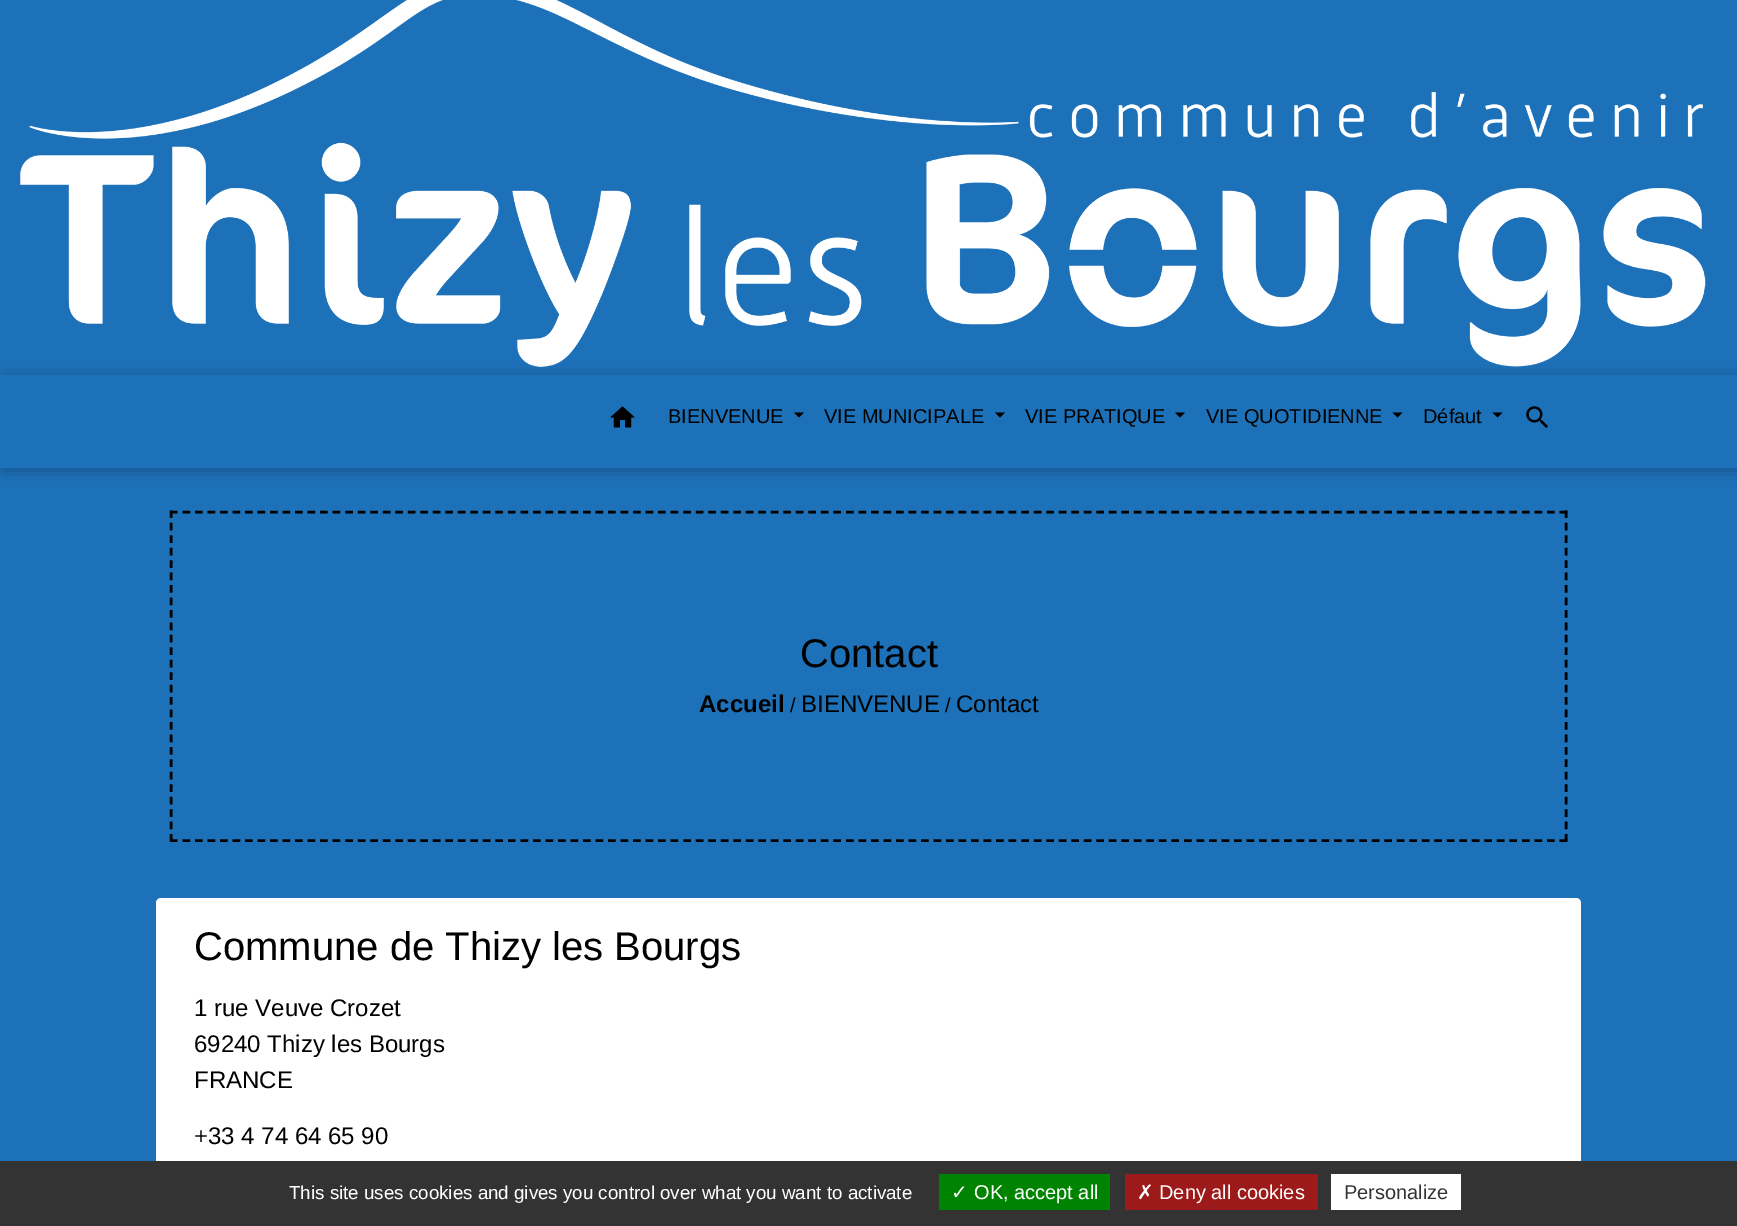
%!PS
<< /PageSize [1737 1226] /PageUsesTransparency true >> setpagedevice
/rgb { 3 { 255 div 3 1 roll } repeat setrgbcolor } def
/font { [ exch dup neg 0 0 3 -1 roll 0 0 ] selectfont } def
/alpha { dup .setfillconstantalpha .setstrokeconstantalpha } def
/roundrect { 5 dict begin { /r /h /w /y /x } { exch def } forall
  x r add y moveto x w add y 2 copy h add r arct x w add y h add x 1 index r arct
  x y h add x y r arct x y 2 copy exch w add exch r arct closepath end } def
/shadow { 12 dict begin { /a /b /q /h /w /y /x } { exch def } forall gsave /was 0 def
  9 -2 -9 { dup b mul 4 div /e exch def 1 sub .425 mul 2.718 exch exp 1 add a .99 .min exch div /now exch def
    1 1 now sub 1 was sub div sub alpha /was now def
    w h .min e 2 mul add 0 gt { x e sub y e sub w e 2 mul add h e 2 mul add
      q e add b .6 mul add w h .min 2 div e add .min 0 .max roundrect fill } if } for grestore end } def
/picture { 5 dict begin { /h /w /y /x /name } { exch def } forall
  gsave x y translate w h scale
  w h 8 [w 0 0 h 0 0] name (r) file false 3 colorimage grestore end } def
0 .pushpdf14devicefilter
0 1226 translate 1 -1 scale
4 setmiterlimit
29 113 184 rgb
0 0 1737 1226 rectfill
(img/1.rgb) 20 0 1686 367 picture
0 0 0 rgb
3 378 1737 92 0 8 0.3 shadow
29 113 184 rgb
0 375 1737 93 rectfill
(img/2.rgb) 610 406 25 22 picture
0 0 0 rgb
794 412.5 moveto 804 412.5 lineto 799 417.5 lineto closepath fill
995 412.5 moveto 1005 412.5 lineto 1000 417.5 lineto closepath fill
1175 412.5 moveto 1185 412.5 lineto 1180 417.5 lineto closepath fill
1392.5 412.5 moveto 1402.5 412.5 lineto 1397.5 417.5 lineto closepath fill
1492.5 412.5 moveto 1502.5 412.5 lineto 1497.5 417.5 lineto closepath fill
(img/3.rgb) 1526 406 22 22 picture
2.5 setlinewidth
[7.5 5.02] 0 setdash
170 512 moveto 1567.5 512 lineto stroke
[7.5 4.95] 0 setdash
1566 510.5 moveto 1566 842 lineto stroke
[7.5 5.02] 0 setdash
170 840.5 moveto 1567.5 840.5 lineto stroke
[7.5 4.95] 0 setdash
171 510.5 moveto 171 842 lineto stroke
255 255 255 rgb
156 898 1425 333 5 roundrect fill
[
  [0 1161 1737 65 51 51 51]
  [939 1174 171 36 0 131 0]
  [1125 1174 193 36 156 26 26]
  [1331 1174 130 36 255 255 255]
] { aload pop rgb rectfill } forall
/LiberationSans-Regular 20 font
0 0 0 rgb
[
  [(BIENVENUE) 668 423]
  [(VIE MUNICIPALE) 824 423]
  [(VIE PRATIQUE) 1025 423]
  [(VIE QUOTIDIENNE) 1206 423]
  [(Défaut) 1423 423]
] { aload pop moveto show } forall
/LiberationSans-Regular 40 font
800 667 moveto (Contact) show
/LiberationSans-Bold 24 font
699 712 moveto (Accueil) show
/LiberationSans-Regular 20 font
790 712 moveto (/) show
/LiberationSans-Regular 24 font
801 712 moveto (BIENVENUE) show
/LiberationSans-Regular 20 font
945 712 moveto (/) show
/LiberationSans-Regular 24 font
956 712 moveto (Contact) show
/LiberationSans-Regular 40 font
194 960 moveto (Commune de Thizy les Bourgs) show
/LiberationSans-Regular 24 font
[
  [(1 rue Veuve Crozet) 194 1016]
  [(69240 Thizy les Bourgs) 194 1052]
  [(FRANCE) 194 1088]
  [(+33 4 74 64 65 90) 194 1144]
] { aload pop moveto show } forall
/LiberationSans-Regular 18.75 font
255 255 255 rgb
289 1199 moveto (This site uses cookies and gives you control over what you want to activate) show
/DejaVuSans-Regular 20 font
951 1199 moveto (✓) show
/LiberationSans-Regular 20 font
974 1199 moveto (OK, accept all) show
/DejaVuSans-Regular 20 font
1137 1199 moveto (✗) show
/LiberationSans-Regular 20 font
1159 1199 moveto (Deny all cookies) show
51 51 51 rgb
1344 1199 moveto (Personalize) show
.poppdf14devicefilter showpage
